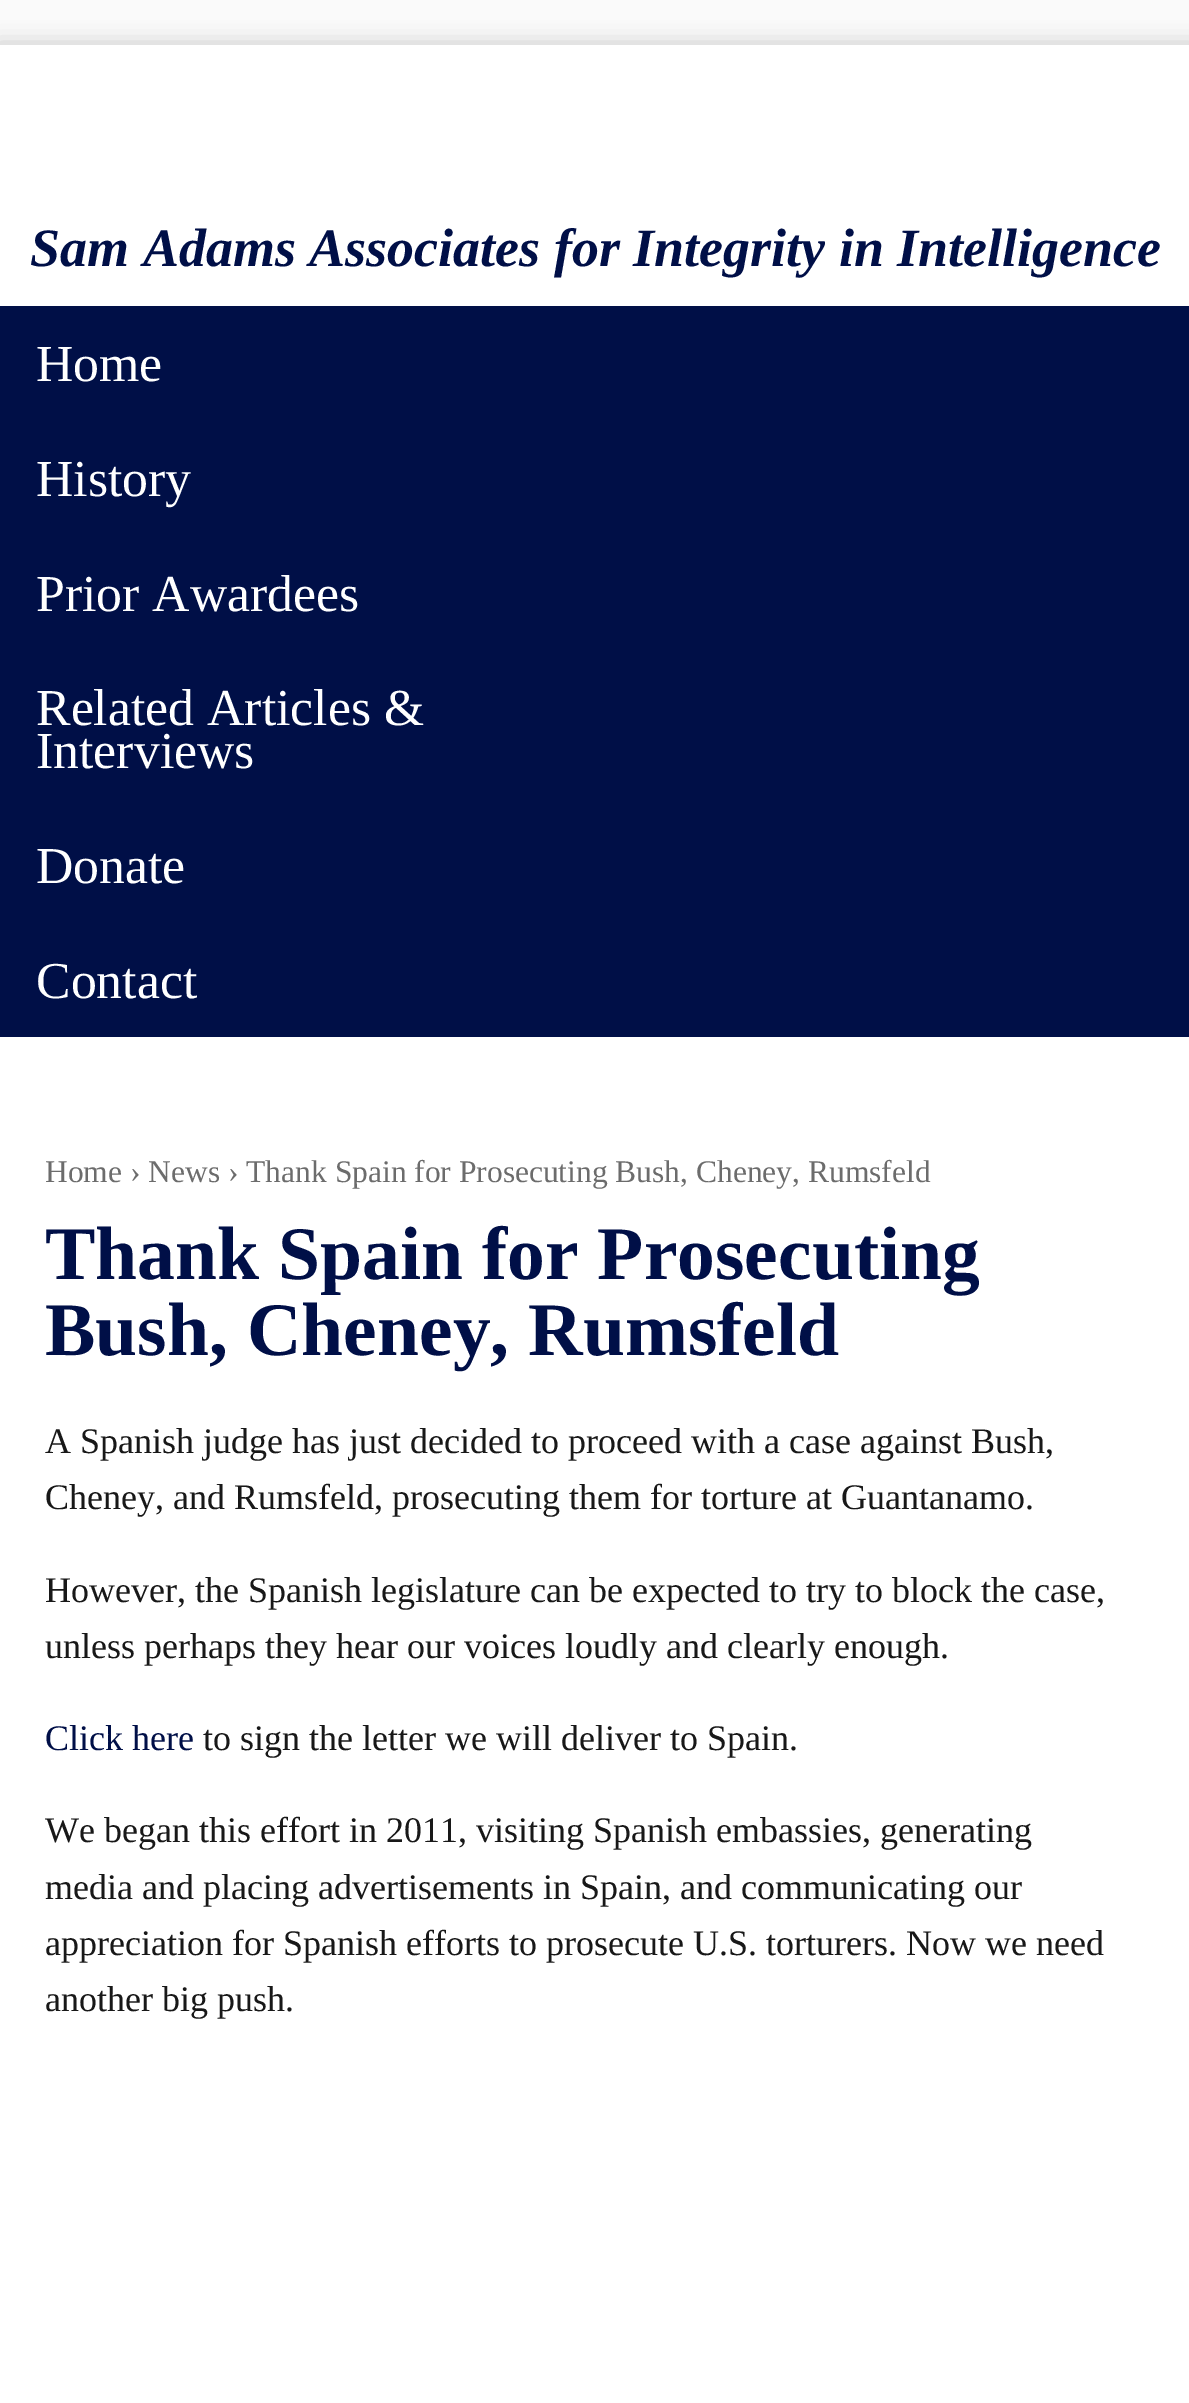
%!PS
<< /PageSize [1189 2403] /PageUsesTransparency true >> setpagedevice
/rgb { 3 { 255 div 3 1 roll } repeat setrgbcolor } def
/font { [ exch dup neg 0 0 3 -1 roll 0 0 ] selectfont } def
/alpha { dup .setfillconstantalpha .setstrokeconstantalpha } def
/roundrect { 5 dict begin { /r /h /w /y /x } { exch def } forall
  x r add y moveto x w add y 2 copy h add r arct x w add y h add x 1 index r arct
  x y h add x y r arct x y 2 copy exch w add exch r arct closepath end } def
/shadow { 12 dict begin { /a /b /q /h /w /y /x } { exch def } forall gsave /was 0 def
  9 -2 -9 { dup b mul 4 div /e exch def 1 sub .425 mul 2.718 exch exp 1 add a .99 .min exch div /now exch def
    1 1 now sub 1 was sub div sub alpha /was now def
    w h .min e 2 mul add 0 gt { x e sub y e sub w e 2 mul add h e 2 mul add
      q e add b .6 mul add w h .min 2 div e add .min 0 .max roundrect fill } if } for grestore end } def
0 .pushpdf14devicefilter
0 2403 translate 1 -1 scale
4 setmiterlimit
250 250 250 rgb
0 0 1189 2403 rectfill
255 255 255 rgb
0 45 1189 2358 rectfill
gsave
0 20 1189 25 rectclip
204 204 204 rgb
-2 43 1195 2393 0 11 1 shadow
grestore
0 15 71 rgb
0 306 1189 731 rectfill
/LiberationSerif-BoldItalic 54 font
30 266 moveto (Sam Adams Associates for Integrity in Intelligence) show
/LiberationSerif-Regular 51.75 font
255 255 255 rgb
[
  [(Home) 36 381]
  [(History) 36 496]
  [(Prior Awardees) 36 611]
  [(Related Articles &) 36 725]
  [(Interviews) 36 768]
  [(Donate) 36 883]
  [(Contact) 36 998]
] { aload pop moveto show } forall
/LiberationSerif-Regular 31.5 font
108 108 108 rgb
45 1182 moveto (Home › News › Thank Spain for Prosecuting Bush, Cheney, Rumsfeld) show
/LiberationSerif-Bold 75.6 font
0 15 71 rgb
45 1279 moveto (Thank Spain for Prosecuting) show
45 1355 moveto (Bush, Cheney, Rumsfeld) show
/LiberationSerif-Regular 36 font
24 24 24 rgb
[
  [(A Spanish judge has just decided to proceed with a case against Bush,) 45 1453]
  [(Cheney, and Rumsfeld, prosecuting them for torture at Guantanamo.) 45 1509]
  [(However, the Spanish legislature can be expected to try to block the case,) 45 1602]
  [(unless perhaps they hear our voices loudly and clearly enough.) 45 1658]
] { aload pop moveto show } forall
0 15 71 rgb
45 1750 moveto (Click here) show
24 24 24 rgb
[
  [(to sign the letter we will deliver to Spain.) 203 1750]
  [(We began this effort in 2011, visiting Spanish embassies, generating) 45 1842]
  [(media and placing advertisements in Spain, and communicating our) 45 1899]
  [(appreciation for Spanish efforts to prosecute U.S. torturers. Now we need) 45 1955]
  [(another big push.) 45 2011]
] { aload pop moveto show } forall
.poppdf14devicefilter showpage
